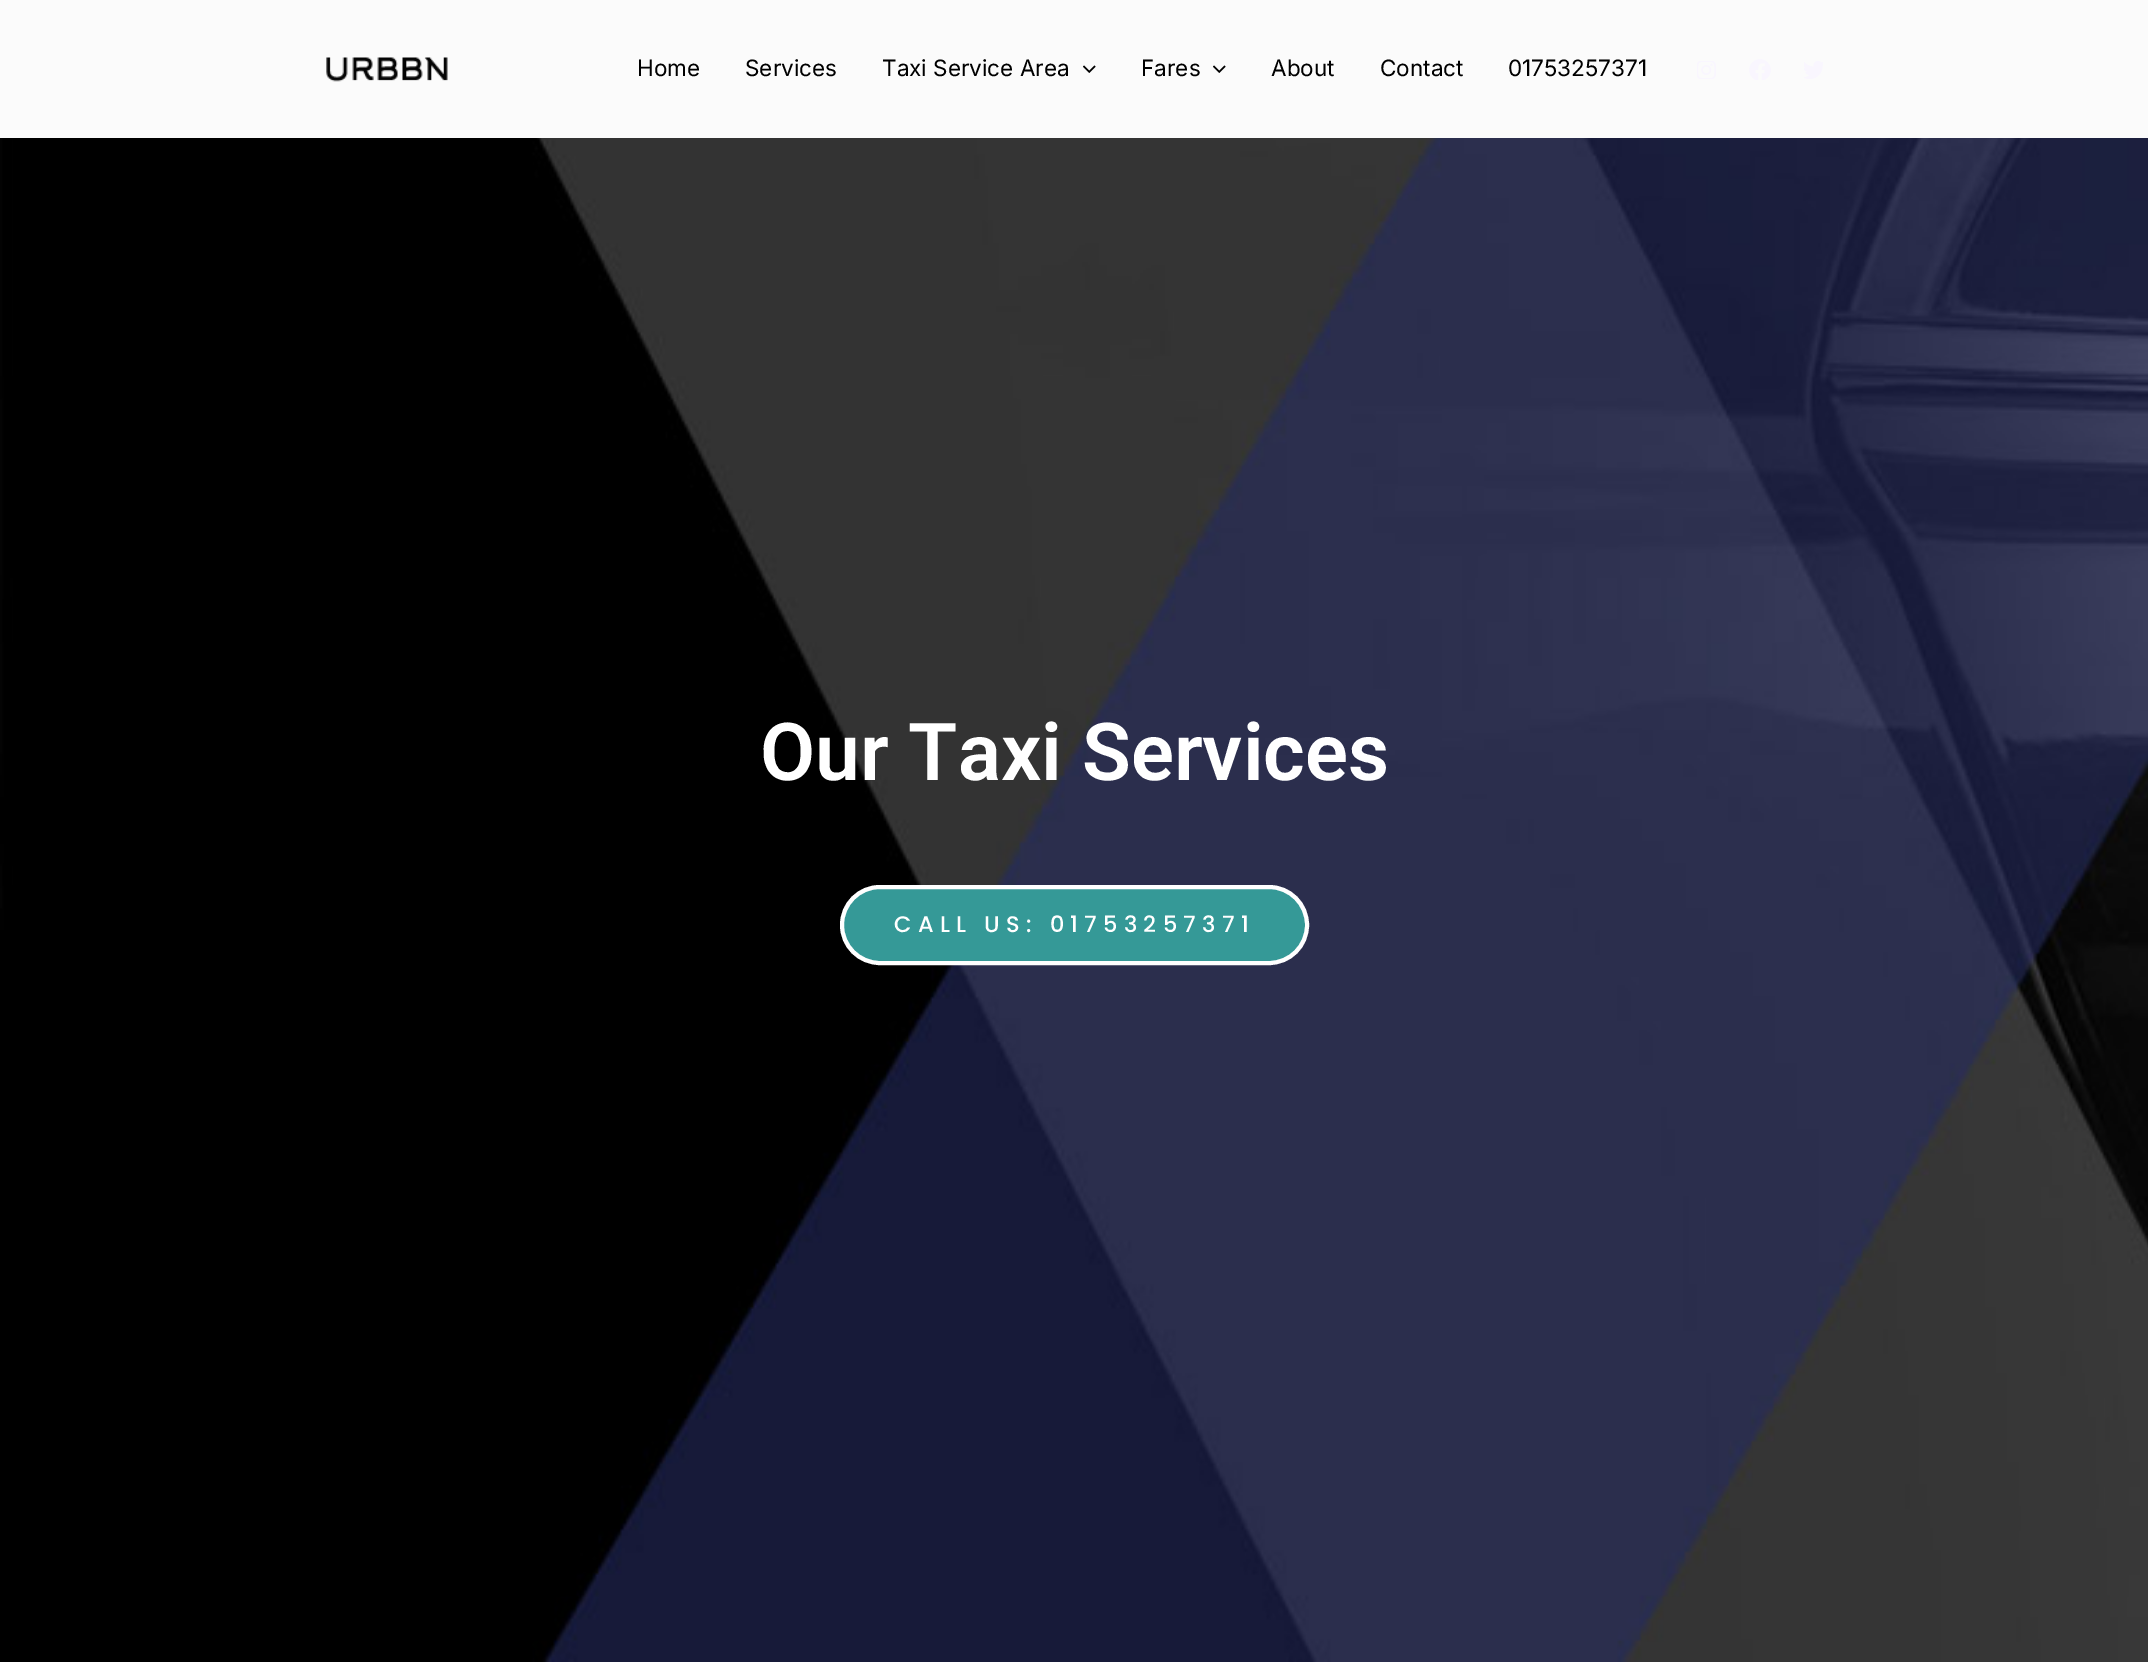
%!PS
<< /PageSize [2148 1662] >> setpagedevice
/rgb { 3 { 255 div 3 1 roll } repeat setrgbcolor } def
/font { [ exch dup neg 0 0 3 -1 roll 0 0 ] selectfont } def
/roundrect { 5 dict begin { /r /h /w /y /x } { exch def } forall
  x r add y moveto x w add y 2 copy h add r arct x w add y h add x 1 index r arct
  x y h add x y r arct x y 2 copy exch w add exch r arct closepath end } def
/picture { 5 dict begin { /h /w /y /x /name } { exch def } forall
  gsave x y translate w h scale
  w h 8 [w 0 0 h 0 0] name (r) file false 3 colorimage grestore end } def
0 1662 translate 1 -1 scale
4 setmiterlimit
255 255 255 rgb
0 0 2148 1662 rectfill
251 251 251 rgb
0 0 2148 138 rectfill
(img/1.rgb) 326 57 122 25 picture
(img/2.rgb) 1083 65 13 8 picture
(img/2.rgb) 1213 65 13 8 picture
(img/3.rgb) 1697 61 19 18 picture
(img/4.rgb) 1749 59 22 21 picture
(img/5.rgb) 1804 61 19 18 picture
(img/6.rgb) 0 138 2148 1524 picture
53 153 151 rgb
842 887 465 76 38 roundrect gsave fill grestore
255 255 255 rgb
4 setlinewidth
stroke
/Inter-Regular 22.5 font
0 0 0 rgb
[
  [(Home) 637 76]
  [(Services) 745 76]
  [(Taxi Service Area) 882 76]
  [(Fares) 1141 76]
  [(About) 1271 76]
  [(Contact) 1380 76]
  [(01753257371) 1508 76]
] { aload pop moveto show } forall
/Roboto-SemiBold 80 font
255 255 255 rgb
760 780 moveto (Our Taxi Services) show
/Poppins-Medium 22.5 font
894 932 moveto 6.25 0 (CALL US: 01753257371) ashow
showpage
